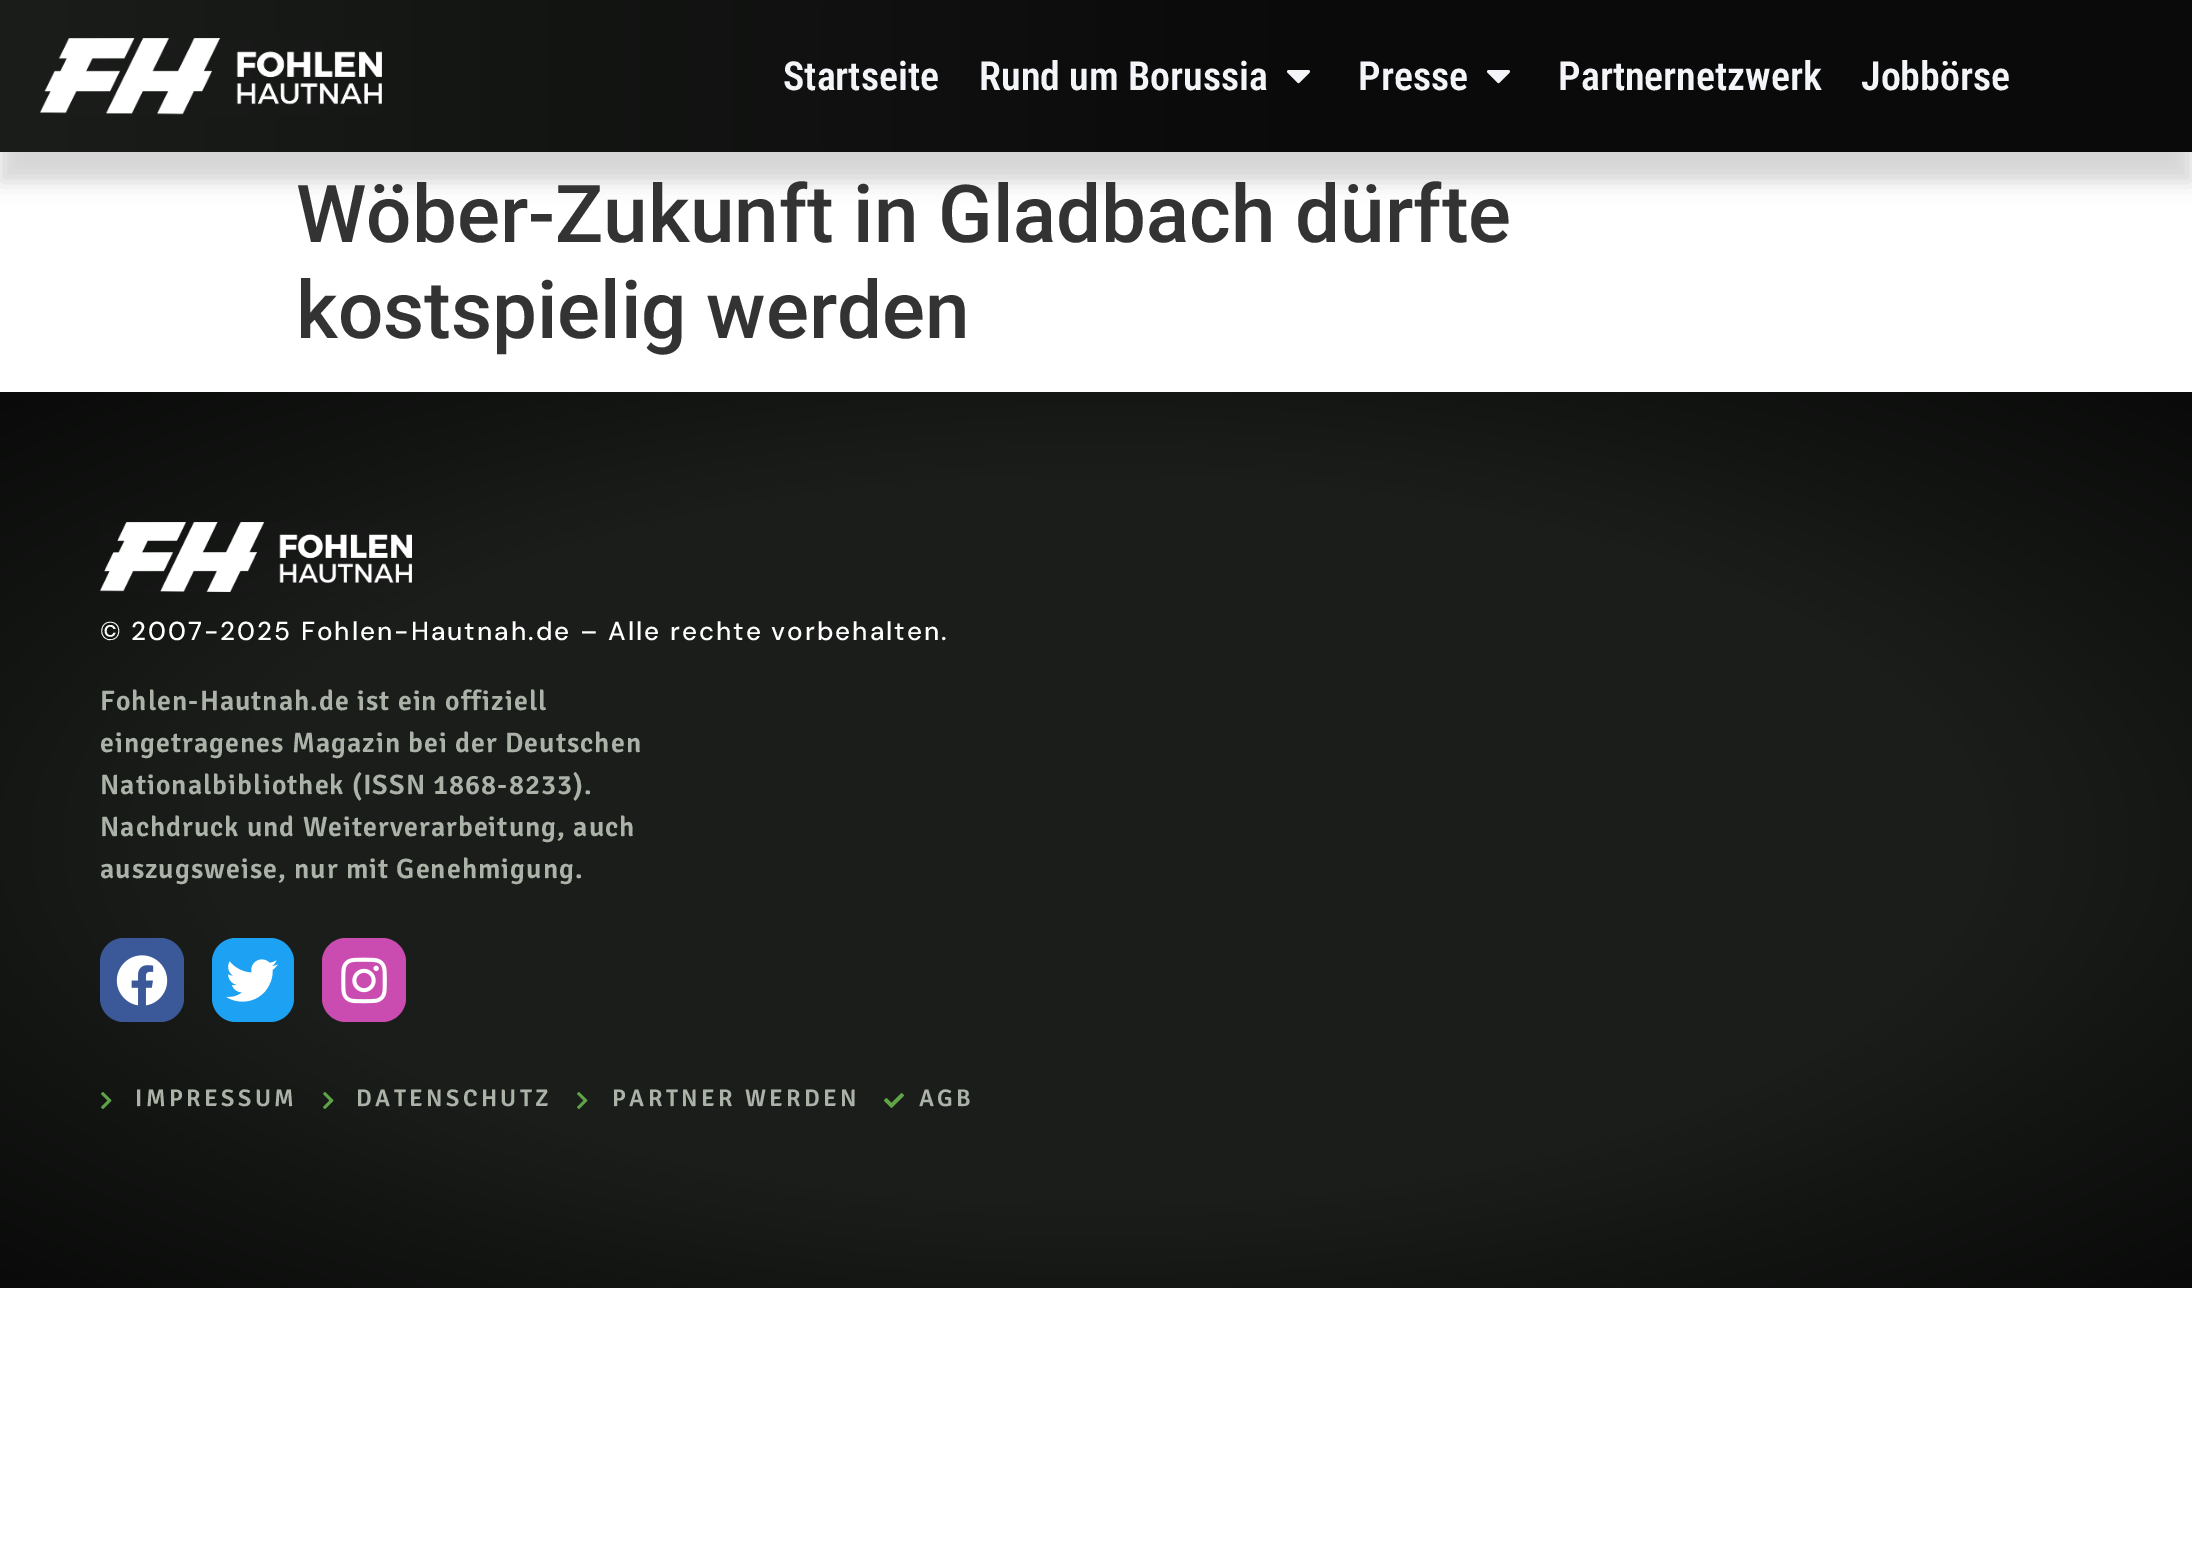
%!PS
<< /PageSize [2192 1547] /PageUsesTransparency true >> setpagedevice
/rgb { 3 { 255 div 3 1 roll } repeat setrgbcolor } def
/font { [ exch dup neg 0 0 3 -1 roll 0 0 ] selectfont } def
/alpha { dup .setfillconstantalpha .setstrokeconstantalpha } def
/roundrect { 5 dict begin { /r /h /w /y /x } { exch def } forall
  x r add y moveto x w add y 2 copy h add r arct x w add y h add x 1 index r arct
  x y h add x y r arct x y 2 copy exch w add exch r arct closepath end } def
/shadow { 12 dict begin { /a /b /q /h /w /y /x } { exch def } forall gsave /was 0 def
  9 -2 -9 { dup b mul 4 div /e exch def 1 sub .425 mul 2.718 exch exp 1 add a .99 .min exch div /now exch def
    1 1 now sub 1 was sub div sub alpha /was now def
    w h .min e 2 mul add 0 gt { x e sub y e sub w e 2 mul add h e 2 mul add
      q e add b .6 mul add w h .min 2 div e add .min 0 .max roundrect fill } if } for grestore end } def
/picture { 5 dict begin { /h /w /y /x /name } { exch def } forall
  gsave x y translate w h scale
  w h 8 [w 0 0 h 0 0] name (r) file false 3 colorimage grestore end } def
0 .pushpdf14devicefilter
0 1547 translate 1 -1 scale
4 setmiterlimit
255 255 255 rgb
0 0 2192 1547 rectfill
0 0 0 rgb
0 30 2192 152 0 10 0.16 shadow
gsave 0 0 moveto 2192 0 lineto 2192 152 lineto 0 152 lineto closepath clip newpath
<< /ShadingType 2 /ColorSpace /DeviceRGB /Coords [2192 76 0 76] /Extend [true true] /Function << /FunctionType 3 /Domain [0 1] /Functions [<< /FunctionType 2 /Domain [0 1] /C0 [0.035 0.039 0.035] /C1 [0.035 0.039 0.035] /N 1 >> << /FunctionType 2 /Domain [0 1] /C0 [0.035 0.039 0.035] /C1 [0.106 0.114 0.106] /N 1 >>] /Bounds [0.41] /Encode [0 1 0 1] >> >> shfill grestore
(img/1.rgb) 40 38 342 77 picture
(img/2.rgb) 1286 70 25 14 picture
(img/2.rgb) 1486 70 25 14 picture
gsave 0 392 moveto 2192 392 lineto 2192 1288 lineto 0 1288 lineto closepath clip newpath 1096 840 translate 1550 634 scale
<< /ShadingType 3 /ColorSpace /DeviceRGB /Coords [0 0 0 0 0 1] /Extend [true true] /Function << /FunctionType 3 /Domain [0 1] /Functions [<< /FunctionType 2 /Domain [0 1] /C0 [0.106 0.114 0.106] /C1 [0.106 0.114 0.106] /N 1 >> << /FunctionType 2 /Domain [0 1] /C0 [0.106 0.114 0.106] /C1 [0.035 0.039 0.035] /N 1 >>] /Bounds [0.57] /Encode [0 1 0 1] >> >> shfill grestore
(img/3.rgb) 100 522 312 70 picture
59 89 152 rgb
100 938 84 84 24 roundrect fill
(img/4.rgb) 116 955 52 51 picture
29 161 242 rgb
212 938 82 84 24 roundrect fill
(img/5.rgb) 226 959 52 43 picture
202 76 177 rgb
322 938 84 84 24 roundrect fill
(img/6.rgb) 341 957 46 47 picture
(img/7.rgb) 101 1092 11 17 picture
(img/8.rgb) 323 1092 11 17 picture
(img/9.rgb) 577 1092 11 17 picture
(img/10.rgb) 884 1093 20 15 picture
/RobotoCondensed-SemiBold 40 font
243 245 248 rgb
[
  [(Startseite) 783 90]
  [(Rund um Borussia) 979 90]
  [(Presse) 1358 90]
  [(Partnernetzwerk) 1558 90]
  [(Jobbörse) 1861 90]
] { aload pop moveto show } forall
/Roboto-Medium 80 font
51 51 51 rgb
296 242 moveto (Wöber-Zukunft in Gladbach dürfte) show
296 338 moveto (kostspielig werden) show
/DMSans-Medium 26 font
255 255 255 rgb
100 640 moveto 2 0 (© 2007-2025 Fohlen-Hautnah.de – Alle rechte vorbehalten.) ashow
/Signika-SemiBold 28 font
171 179 168 rgb
100 710 moveto 1 0 (Fohlen-Hautnah.de ist ein offiziell) ashow
100 752 moveto 1 0 (eingetragenes Magazin bei der Deutschen) ashow
100 794 moveto 1 0 (Nationalbibliothek \(ISSN 1868-8233\).) ashow
100 836 moveto 1 0 (Nachdruck und Weiterverarbeitung, auch) ashow
100 878 moveto 1 0 (auszugsweise, nur mit Genehmigung.) ashow
/Signika-SemiBold 24 font
135 1106 moveto 3.4 0 (IMPRESSUM) ashow
356 1106 moveto 3.4 0 (DATENSCHUTZ) ashow
612 1106 moveto 3.4 0 (PARTNER WERDEN) ashow
919 1106 moveto 3.4 0 (AGB) ashow
.poppdf14devicefilter showpage
